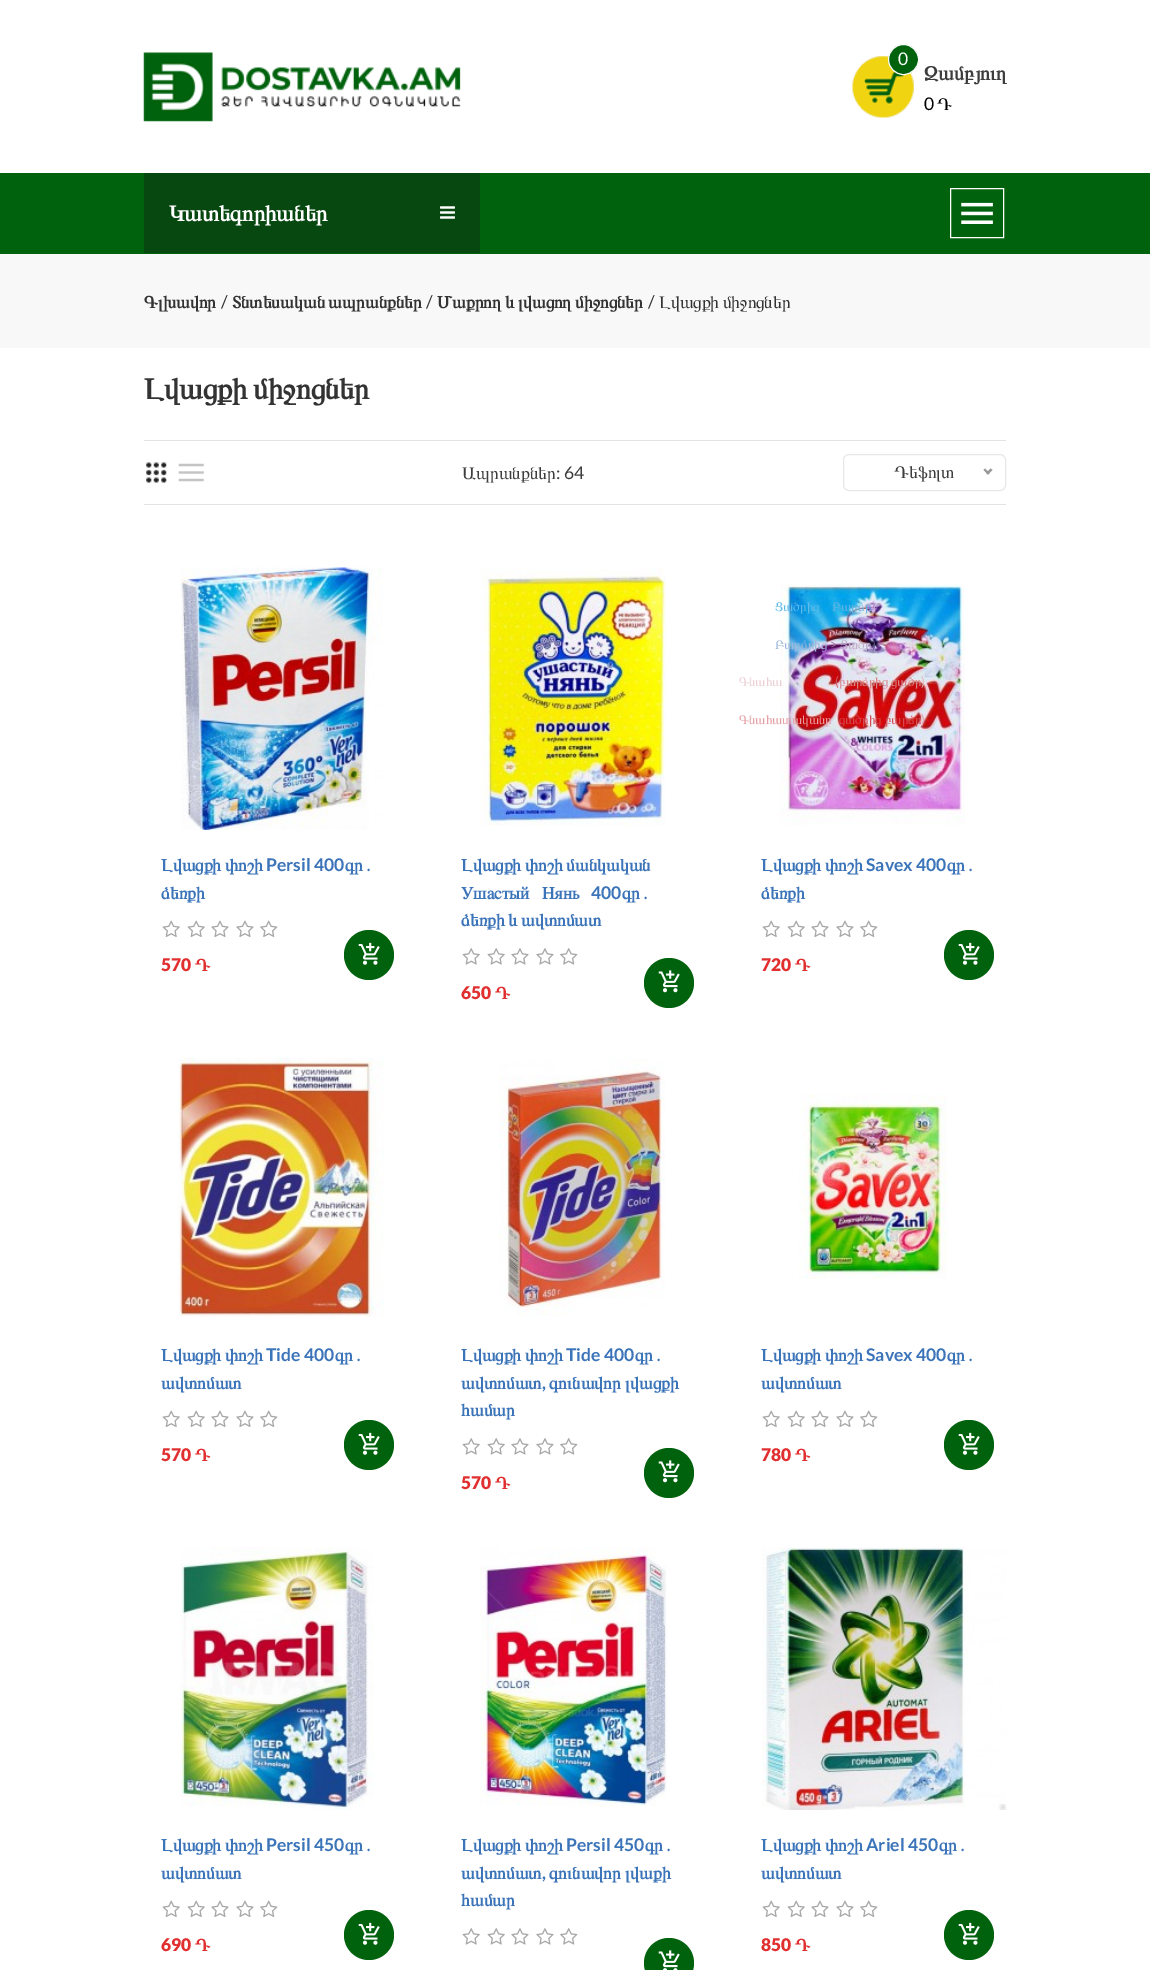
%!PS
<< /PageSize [1150 1970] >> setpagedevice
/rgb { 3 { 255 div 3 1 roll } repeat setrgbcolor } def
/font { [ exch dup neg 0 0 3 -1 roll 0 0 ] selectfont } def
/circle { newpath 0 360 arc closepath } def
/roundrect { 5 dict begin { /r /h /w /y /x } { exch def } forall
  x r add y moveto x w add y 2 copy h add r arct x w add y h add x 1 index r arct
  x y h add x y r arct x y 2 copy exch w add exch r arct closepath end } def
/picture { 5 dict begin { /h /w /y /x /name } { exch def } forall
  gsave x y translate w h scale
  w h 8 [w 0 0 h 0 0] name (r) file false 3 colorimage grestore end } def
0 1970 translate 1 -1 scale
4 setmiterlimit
255 255 255 rgb
0 0 1150 1970 rectfill
(img/1.rgb) 143 52 318 70 picture
(img/2.rgb) 852 56 62 62 picture
0 98 13 rgb
903.5 59.5 15 circle gsave fill grestore
255 255 255 rgb
stroke
0 98 13 rgb
0 173 1150 81 rectfill
7 72 16 rgb
144 173 336 80 rectfill
(img/3.rgb) 440 206 15 13 picture
255 255 255 rgb
950.5 188.5 53 49 rectstroke
(img/4.rgb) 961 202 32 22 picture
[
  [0 254 1150 94 248 248 248]
  [144 440 862 1 228 227 227]
  [144 504 862 1 228 227 227]
] { aload pop rgb rectfill } forall
(img/5.rgb) 146 462 21 21 picture
(img/6.rgb) 178 463 26 19 picture
232 232 232 rgb
843.5 454.5 162 36 5.5 roundrect stroke
153 153 153 rgb
990.5 468.5 moveto 992.5 470 lineto 988 474.5 lineto 986 473 lineto closepath fill
985 468.5 moveto 989.5 473 lineto 988 474.5 lineto 983.5 470 lineto closepath fill
(img/7.rgb) 180 567 203 263 picture
(img/8.rgb) 162 920 18 17 picture
(img/8.rgb) 187 920 18 17 picture
(img/9.rgb) 211 920 18 17 picture
(img/9.rgb) 236 920 18 17 picture
(img/10.rgb) 260 920 18 17 picture
0 98 13 rgb
369 955 25 circle fill
(img/11.rgb) 358 942 22 23 picture
(img/12.rgb) 480 567 186 259 picture
(img/13.rgb) 462 948 18 17 picture
(img/13.rgb) 487 948 18 17 picture
(img/14.rgb) 511 948 18 17 picture
(img/14.rgb) 536 948 18 17 picture
(img/15.rgb) 560 948 18 17 picture
669 983 25 circle fill
(img/16.rgb) 658 970 22 23 picture
(img/17.rgb) 780 584 185 241 picture
(img/8.rgb) 762 920 18 17 picture
(img/8.rgb) 787 920 18 17 picture
(img/9.rgb) 811 920 18 17 picture
(img/9.rgb) 836 920 18 17 picture
(img/10.rgb) 860 920 18 17 picture
969 955 25 circle fill
(img/11.rgb) 958 942 22 23 picture
(img/18.rgb) 178 1057 206 260 picture
(img/8.rgb) 162 1410 18 17 picture
(img/8.rgb) 187 1410 18 17 picture
(img/9.rgb) 211 1410 18 17 picture
(img/9.rgb) 236 1410 18 17 picture
(img/10.rgb) 260 1410 18 17 picture
369 1445 25 circle fill
(img/11.rgb) 358 1432 22 23 picture
(img/19.rgb) 499 1058 166 258 picture
(img/13.rgb) 462 1438 18 17 picture
(img/13.rgb) 487 1438 18 17 picture
(img/14.rgb) 511 1438 18 17 picture
(img/14.rgb) 536 1438 18 17 picture
(img/15.rgb) 560 1438 18 17 picture
669 1473 25 circle fill
(img/16.rgb) 658 1460 22 23 picture
(img/20.rgb) 799 1094 148 185 picture
(img/8.rgb) 762 1410 18 17 picture
(img/8.rgb) 787 1410 18 17 picture
(img/9.rgb) 811 1410 18 17 picture
(img/9.rgb) 836 1410 18 17 picture
(img/10.rgb) 860 1410 18 17 picture
969 1445 25 circle fill
(img/11.rgb) 958 1432 22 23 picture
(img/21.rgb) 180 1547 194 263 picture
(img/8.rgb) 162 1900 18 17 picture
(img/8.rgb) 187 1900 18 17 picture
(img/9.rgb) 211 1900 18 17 picture
(img/9.rgb) 236 1900 18 17 picture
(img/10.rgb) 260 1900 18 17 picture
369 1935 25 circle fill
(img/11.rgb) 358 1922 22 23 picture
(img/22.rgb) 480 1547 187 259 picture
(img/13.rgb) 462 1928 18 17 picture
(img/13.rgb) 487 1928 18 17 picture
(img/14.rgb) 511 1928 18 17 picture
(img/14.rgb) 536 1928 18 17 picture
(img/15.rgb) 560 1928 18 17 picture
669 1963 25 circle fill
(img/23.rgb) 658 1950 22 20 picture
(img/24.rgb) 762 1547 245 263 picture
(img/8.rgb) 762 1900 18 17 picture
(img/8.rgb) 787 1900 18 17 picture
(img/9.rgb) 811 1900 18 17 picture
(img/9.rgb) 836 1900 18 17 picture
(img/10.rgb) 860 1900 18 17 picture
969 1935 25 circle fill
(img/11.rgb) 958 1922 22 23 picture
/Lato-Regular 17.5 font
255 255 255 rgb
898 65 moveto (0) show
/FreeSerif-Bold 20 font
61 61 61 rgb
924 80 moveto (Զամբյուղ) show
/Lato-Regular 17.5 font
0 0 0 rgb
924 110 moveto (0) show
/FreeSerif-Regular 17.5 font
937 110 moveto (Դ) show
/FreeSerif-Bold 22.5 font
255 255 255 rgb
169 221 moveto (Կատեգորիաներ) show
/FreeSerif-Bold 17.5 font
51 51 51 rgb
144 308 moveto (Գլխավոր) show
/Lato-Regular 17.5 font
221 308 moveto (/) show
/FreeSerif-Bold 17.5 font
232 308 moveto -1 0 32 (Տնտեսական ապրանքներ) widthshow
/Lato-Regular 17.5 font
426 308 moveto (/) show
/FreeSerif-Bold 17.5 font
437 308 moveto -1 0 32 (Մաքրող և լվացող միջոցներ) widthshow
/Lato-Regular 17.5 font
648 308 moveto (/) show
/FreeSerif-Regular 17.5 font
659 308 moveto -1 0 32 (Լվացքի միջոցներ) widthshow
/FreeSerif-Bold 30 font
144 399 moveto -2 0 32 (Լվացքի միջոցներ) widthshow
/FreeSerif-Regular 17.5 font
61 61 61 rgb
462 479 moveto (Ապրանքներ) show
/Lato-Regular 17.5 font
556 479 moveto (: 64) show
/FreeSerif-Regular 17.5 font
894 478 moveto (Դեֆոլտ) show
/FreeSerif-Regular 13 font
94 187 235 rgb
775 611 moveto (Ցածրից) show
101 180 225 rgb
832 611 moveto (Բարձր) show
/Lato-Regular 13 font
197 167 217 rgb
872 611 moveto (\)) show
/FreeSerif-Regular 13 font
157 183 221 rgb
775 649 moveto (Բարձրից) show
/Lato-Regular 13 font
154 111 158 rgb
830 649 moveto (>) show
/FreeSerif-Regular 13 font
191 175 203 rgb
840 649 moveto (Ցածր) show
/Lato-Regular 13 font
101 87 138 rgb
872 649 moveto (\)) show
/FreeSerif-Regular 13 font
235 206 211 rgb
739 686 moveto (Գնահա) show
/Lato-Regular 13 font
206 87 94 rgb
835 686 moveto (\() show
/FreeSerif-Regular 13 font
216 133 137 rgb
839 686 moveto (բարձրից ցածր) show
/Lato-Regular 13 font
217 184 189 rgb
921 686 moveto (\)) show
/FreeSerif-Regular 13 font
229 158 162 rgb
739 724 moveto (Գնահատականը) show
212 76 81 rgb
839 724 moveto (ցածրից բարձր) show
/Lato-Regular 13 font
220 166 173 rgb
921 724 moveto (\)) show
/FreeSerif-Bold 17.5 font
60 116 185 rgb
161 871 moveto (Լվացքի) show
225 871 moveto (փոշի) show
/Lato-Bold 17.5 font
266 871 moveto (Persil 400) show
/FreeSerif-Bold 17.5 font
345 871 moveto (գր․) show
161 899 moveto (ձեռքի) show
/Lato-Black 17.5 font
225 46 46 rgb
161 971 moveto (570) show
/FreeSerif-Bold 17.5 font
195 971 moveto (Դ) show
60 116 185 rgb
461 871 moveto -1 0 32 (Լվացքի փոշի մանկական) widthshow
461 899 moveto 8 0 32 (Ушастый Нянь) widthshow
/Lato-Bold 17.5 font
591 899 moveto (400) show
/FreeSerif-Bold 17.5 font
622 899 moveto (գր․) show
461 926 moveto -1 0 32 (ձեռքի և ավտոմատ) widthshow
/Lato-Black 17.5 font
225 46 46 rgb
461 999 moveto (650) show
/FreeSerif-Bold 17.5 font
495 999 moveto (Դ) show
60 116 185 rgb
761 871 moveto (Լվացքի) show
825 871 moveto (փոշի) show
/Lato-Bold 17.5 font
866 871 moveto (Savex 400) show
/FreeSerif-Bold 17.5 font
947 871 moveto (գր․) show
761 899 moveto (ձեռքի) show
/Lato-Black 17.5 font
225 46 46 rgb
761 971 moveto (720) show
/FreeSerif-Bold 17.5 font
795 971 moveto (Դ) show
60 116 185 rgb
161 1361 moveto (Լվացքի) show
225 1361 moveto (փոշի) show
/Lato-Bold 17.5 font
266 1361 moveto (Tide 400) show
/FreeSerif-Bold 17.5 font
335 1361 moveto (գր․) show
161 1389 moveto (ավտոմատ) show
/Lato-Black 17.5 font
225 46 46 rgb
161 1461 moveto (570) show
/FreeSerif-Bold 17.5 font
195 1461 moveto (Դ) show
60 116 185 rgb
461 1361 moveto (Լվացքի) show
525 1361 moveto (փոշի) show
/Lato-Bold 17.5 font
566 1361 moveto (Tide 400) show
/FreeSerif-Bold 17.5 font
635 1361 moveto (գր․) show
461 1389 moveto (ավտոմատ) show
/Lato-Bold 17.5 font
542 1389 moveto (,) show
/FreeSerif-Bold 17.5 font
549 1389 moveto (գունավոր լվացքի) show
461 1416 moveto (համար) show
/Lato-Black 17.5 font
225 46 46 rgb
461 1489 moveto (570) show
/FreeSerif-Bold 17.5 font
495 1489 moveto (Դ) show
60 116 185 rgb
761 1361 moveto (Լվացքի) show
825 1361 moveto (փոշի) show
/Lato-Bold 17.5 font
866 1361 moveto (Savex 400) show
/FreeSerif-Bold 17.5 font
947 1361 moveto (գր․) show
761 1389 moveto (ավտոմատ) show
/Lato-Black 17.5 font
225 46 46 rgb
761 1461 moveto (780) show
/FreeSerif-Bold 17.5 font
795 1461 moveto (Դ) show
60 116 185 rgb
161 1851 moveto (Լվացքի) show
225 1851 moveto (փոշի) show
/Lato-Bold 17.5 font
266 1851 moveto (Persil 450) show
/FreeSerif-Bold 17.5 font
345 1851 moveto (գր․) show
161 1879 moveto (ավտոմատ) show
/Lato-Black 17.5 font
225 46 46 rgb
161 1951 moveto (690) show
/FreeSerif-Bold 17.5 font
195 1951 moveto (Դ) show
60 116 185 rgb
461 1851 moveto (Լվացքի) show
525 1851 moveto (փոշի) show
/Lato-Bold 17.5 font
566 1851 moveto (Persil 450) show
/FreeSerif-Bold 17.5 font
645 1851 moveto (գր․) show
461 1879 moveto (ավտոմատ) show
/Lato-Bold 17.5 font
542 1879 moveto (,) show
/FreeSerif-Bold 17.5 font
[
  [(գունավոր լվաքի) 549 1879]
  [(համար) 461 1906]
  [(Լվացքի) 761 1851]
  [(փոշի) 825 1851]
] { aload pop moveto show } forall
/Lato-Bold 17.5 font
866 1851 moveto (Ariel 450) show
/FreeSerif-Bold 17.5 font
939 1851 moveto (գր․) show
761 1879 moveto (ավտոմատ) show
/Lato-Black 17.5 font
225 46 46 rgb
761 1951 moveto (850) show
/FreeSerif-Bold 17.5 font
795 1951 moveto (Դ) show
showpage
